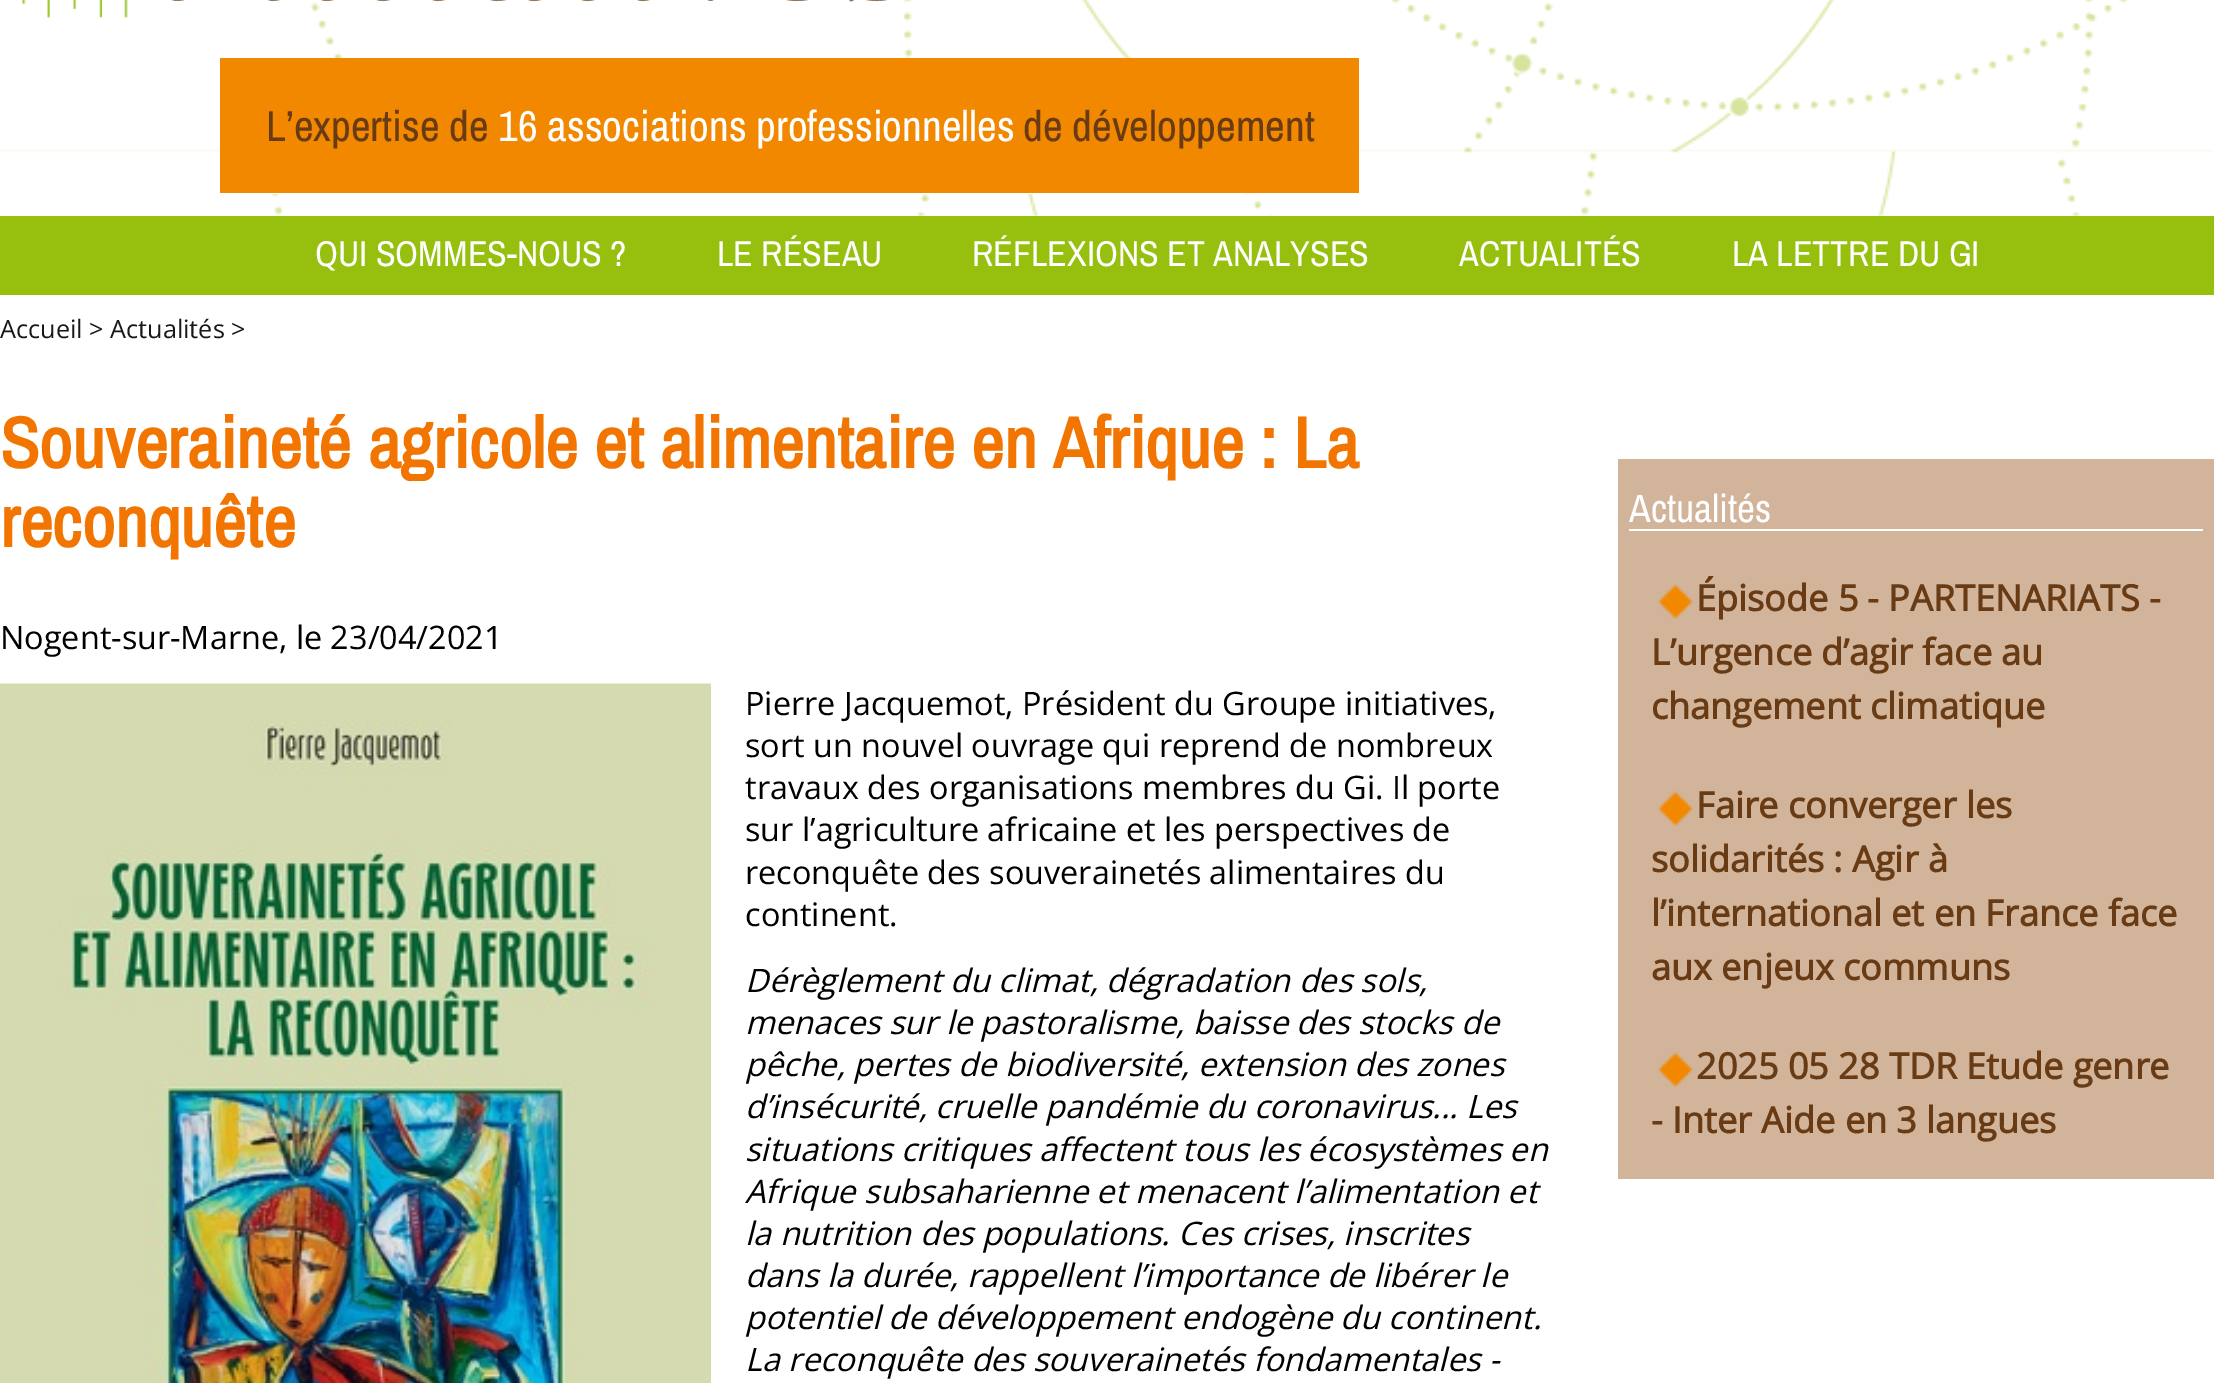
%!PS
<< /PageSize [2214 1383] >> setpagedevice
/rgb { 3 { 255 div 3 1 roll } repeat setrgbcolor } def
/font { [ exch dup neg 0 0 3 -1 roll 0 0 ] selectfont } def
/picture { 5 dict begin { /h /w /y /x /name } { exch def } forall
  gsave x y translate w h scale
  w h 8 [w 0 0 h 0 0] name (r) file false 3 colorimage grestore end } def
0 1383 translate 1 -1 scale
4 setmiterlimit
255 255 255 rgb
0 0 2214 1383 rectfill
(img/1.rgb) 0 0 2214 216 picture
(img/2.rgb) 22 0 866 19 picture
[
  [271 193 979 1 255 255 255]
  [220 58 1139 135 241 136 0]
  [0 216 2214 79 151 191 13]
] { aload pop rgb rectfill } forall
(img/3.rgb) 0 683 711 700 picture
209 180 153 rgb
1618 459 596 720 rectfill
255 255 255 rgb
1629 529 574 2 rectfill
(img/4.rgb) 1657 584 36 35 picture
(img/5.rgb) 1657 791 36 35 picture
(img/6.rgb) 1657 1052 36 35 picture
/ArchivoNarrow-Regular 43.25 font
104 59 21 rgb
266 141 moveto (L’expertise de) show
255 255 255 rgb
498 141 moveto (16 associations professionnelles) show
104 59 21 rgb
1023 141 moveto (de développement) show
/ArchivoNarrow-Regular 36 font
255 255 255 rgb
[
  [(QUI SOMMES-NOUS ?) 315 266]
  [(LE RÉSEAU) 717 266]
  [(RÉFLEXIONS ET ANALYSES) 972 266]
  [(ACTUALITÉS) 1459 266]
  [(LA LETTRE DU GI) 1732 266]
] { aload pop moveto show } forall
/OpenSans-Regular 25.25 font
26 23 27 rgb
0 338 moveto (Accueil > Actualités >) show
/ArchivoNarrow-Bold 72 font
241 117 0 rgb
0 468 moveto (Souveraineté agricole et alimentaire en Afrique : La) show
0 547 moveto (reconquête) show
/OpenSans-Regular 32.4 font
0 0 0 rgb
[
  [(Nogent-sur-Marne, le 23/04/2021) 0 649]
  [(Pierre Jacquemot, Président du Groupe initiatives,) 745 715]
  [(sort un nouvel ouvrage qui reprend de nombreux) 745 757]
  [(travaux des organisations membres du Gi. Il porte) 745 799]
  [(sur l’agriculture africaine et) 745 841]
  [(les perspectives de) 1164 841]
  [(reconquête des souverainetés alimentaires du) 745 884]
  [(continent.) 745 926]
] { aload pop moveto show } forall
/OpenSans-Italic 32.4 font
[
  [(Dérèglement du climat, dégradation des sols,) 745 992]
  [(menaces sur le pastoralisme, baisse des stocks de) 745 1034]
  [(pêche, pertes de biodiversité, extension des zones) 745 1076]
  [(d’insécurité, cruelle pandémie du coronavirus... Les) 745 1118]
  [(situations critiques affectent tous les écosystèmes en) 745 1161]
  [(Afrique subsaharienne et menacent l’alimentation et) 745 1203]
  [(la nutrition des populations. Ces crises, inscrites) 745 1245]
  [(dans la durée, rappellent l’importance de libérer le) 745 1287]
  [(potentiel de développement endogène du continent.) 745 1329]
  [(La reconquête des souverainetés fondamentales -) 745 1371]
] { aload pop moveto show } forall
/ArchivoNarrow-Regular 39.5 font
255 255 255 rgb
1629 522 moveto (Actualités) show
/OpenSans-Bold 36 font
104 59 21 rgb
[
  [(Épisode 5 - PARTENARIATS -) 1696 611]
  [(L’urgence d’agir face au) 1651 665]
  [(changement climatique) 1651 719]
  [(Faire converger les) 1696 818]
  [(solidarités : Agir à) 1651 872]
  [(l’international et en France face) 1651 926]
  [(aux enjeux communs) 1651 980]
  [(2025 05 28 TDR Etude genre) 1696 1079]
  [(- Inter Aide en 3 langues) 1651 1133]
] { aload pop moveto show } forall
showpage
